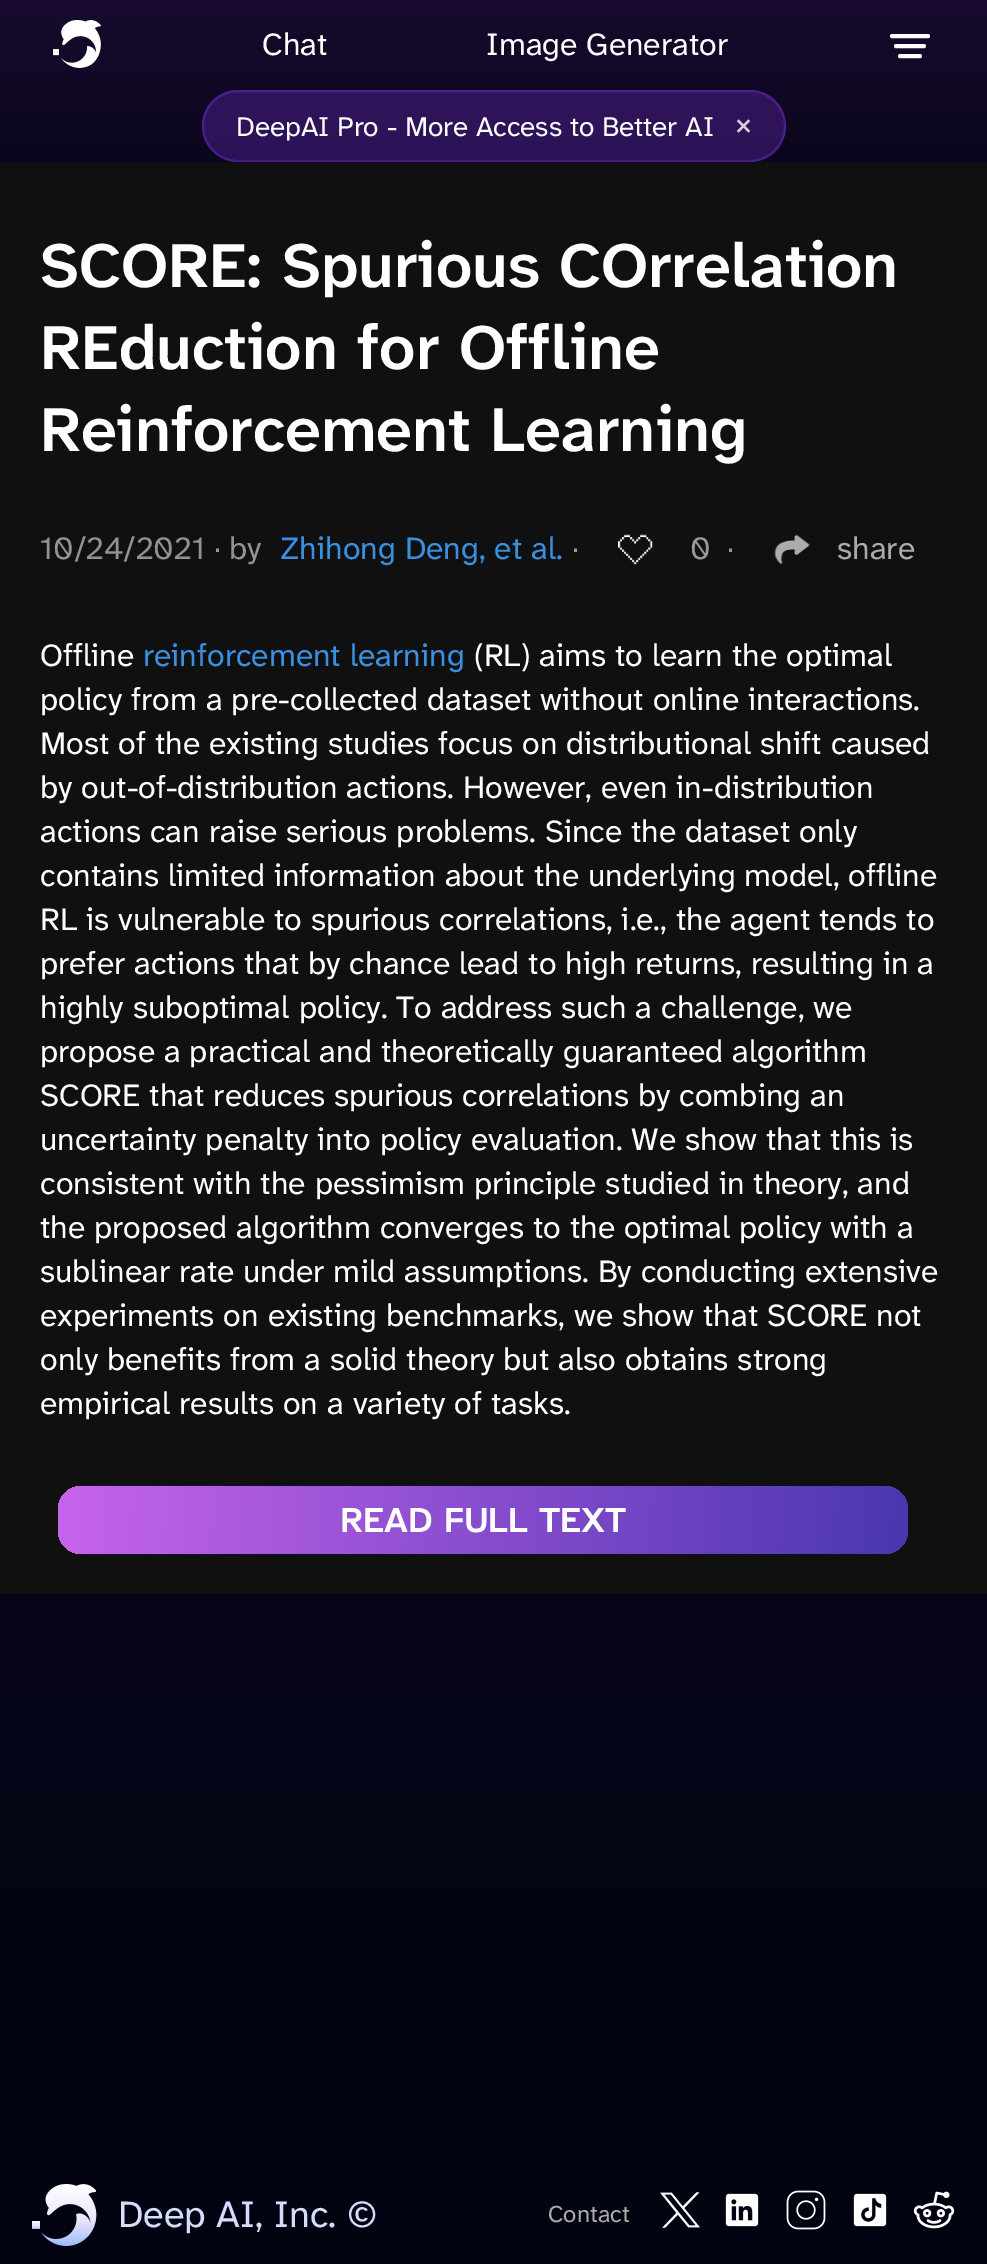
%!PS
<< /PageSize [987 2264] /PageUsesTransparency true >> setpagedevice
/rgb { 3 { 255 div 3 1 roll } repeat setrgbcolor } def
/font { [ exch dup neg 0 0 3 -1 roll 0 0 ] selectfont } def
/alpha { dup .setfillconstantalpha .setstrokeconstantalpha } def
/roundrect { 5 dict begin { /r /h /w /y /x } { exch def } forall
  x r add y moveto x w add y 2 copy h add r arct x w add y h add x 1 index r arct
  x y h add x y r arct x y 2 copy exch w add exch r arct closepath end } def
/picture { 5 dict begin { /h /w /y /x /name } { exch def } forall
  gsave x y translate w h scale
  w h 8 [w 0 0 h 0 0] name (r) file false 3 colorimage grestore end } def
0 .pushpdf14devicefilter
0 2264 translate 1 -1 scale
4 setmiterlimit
255 255 255 rgb
0 0 987 2264 rectfill
gsave 0 0 moveto 987 0 lineto 987 2264 lineto 0 2264 lineto closepath clip newpath
<< /ShadingType 2 /ColorSpace /DeviceRGB /Coords [494 -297 494 2264] /Extend [true true] /Function << /FunctionType 3 /Domain [0 1] /Functions [<< /FunctionType 2 /Domain [0 1] /C0 [0.467 0.161 0.667] /C1 [0.09 0.039 0.176] /N 1 >> << /FunctionType 2 /Domain [0 1] /C0 [0.09 0.039 0.176] /C1 [0.039 0.024 0.114] /N 1 >> << /FunctionType 2 /Domain [0 1] /C0 [0.039 0.024 0.114] /C1 [0.039 0.024 0.118] /N 1 >> << /FunctionType 2 /Domain [0 1] /C0 [0.039 0.024 0.118] /C1 [0.004 0.012 0.067] /N 1 >> << /FunctionType 2 /Domain [0 1] /C0 [0.004 0.012 0.067] /C1 [0.004 0.012 0.067] /N 1 >>] /Bounds [0.12 0.18 0.44 0.99] /Encode [0 1 0 1 0 1 0 1 0 1] >> >> shfill grestore
(img/1.rgb) 53 20 48 48 picture
4 setlinewidth
1 setlinecap
892 36 moveto 928 36 lineto 896 46 moveto 924 46 lineto 900 56 moveto 920 56 lineto stroke
0.25 alpha
143 55 255 rgb
202 90 584 72 36 roundrect fill
0.3 alpha
2 setlinewidth
0 setlinecap
203 91 582 70 35 roundrect stroke
1 alpha
16 16 16 rgb
0 162 987 1432 rectfill
(img/2.rgb) 617 534 36 31 picture
(img/3.rgb) 774 535 36 29 picture
gsave 58 1486 850 68 24 roundrect clip newpath
<< /ShadingType 2 /ColorSpace /DeviceRGB /Coords [58 1490 908 1550] /Extend [true true] /Function << /FunctionType 2 /Domain [0 1] /C0 [0.78 0.392 0.925] /C1 [0.29 0.212 0.694] /N 1 >> >> shfill grestore
(img/4.rgb) 32 2184 65 62 picture
(img/5.rgb) 660 2192 40 36 picture
(img/6.rgb) 725 2193 34 34 picture
(img/7.rgb) 786 2190 40 40 picture
(img/8.rgb) 853 2193 34 34 picture
(img/9.rgb) 913 2191 42 38 picture
/AtkinsonHyperlegibleNext-Regular 32 font
255 255 255 rgb
262 55 moveto (Chat) show
486 55 moveto (Image Generator) show
/AtkinsonHyperlegibleNext-Regular 28 font
236 136 moveto (DeepAI Pro - More Access to Better AI) show
/AtkinsonHyperlegibleNext-Regular 32 font
213 208 222 rgb
735 134 moveto (×) show
/AtkinsonHyperlegibleNext-SemiBold 64 font
255 255 255 rgb
[
  [(SCORE: Spurious COrrelation) 40 287]
  [(REduction for Offline) 40 369]
  [(Reinforcement Learning) 40 451]
] { aload pop moveto show } forall
/AtkinsonHyperlegibleNext-Regular 32 font
145 146 149 rgb
40 559 moveto (10/24/2021) show
/LiberationSans-Regular 32 font
153 153 153 rgb
213 559 moveto (∙) show
/AtkinsonHyperlegibleNext-Regular 32 font
145 146 149 rgb
229 559 moveto (by) show
58 144 224 rgb
280 559 moveto (Zhihong Deng, et al.) show
/LiberationSans-Regular 32 font
153 153 153 rgb
571 559 moveto (∙) show
/AtkinsonHyperlegibleNext-Regular 32 font
690 559 moveto (0) show
/LiberationSans-Regular 32 font
726 559 moveto (∙) show
/AtkinsonHyperlegibleNext-Regular 32 font
171 171 171 rgb
837 559 moveto (share) show
255 255 255 rgb
40 666 moveto (Offline) show
58 144 224 rgb
143 666 moveto (reinforcement learning) show
255 255 255 rgb
[
  [(\(RL\) aims to learn the optimal) 474 666]
  [(policy from a pre-collected dataset without online interactions.) 40 710]
  [(Most of the existing studies focus on distributional shift caused) 40 754]
  [(by out-of-distribution actions. However, even in-distribution) 40 798]
  [(actions can raise serious problems. Since the dataset only) 40 842]
  [(contains limited information about the underlying model, offline) 40 886]
  [(RL is vulnerable to spurious correlations, i.e., the agent tends to) 40 930]
  [(prefer actions that by chance lead to high returns, resulting in a) 40 974]
  [(highly suboptimal policy. To address such a challenge, we) 40 1018]
  [(propose a practical and theoretically guaranteed algorithm) 40 1062]
  [(SCORE that reduces spurious correlations by combing an) 40 1106]
  [(uncertainty penalty into policy evaluation. We show that this is) 40 1150]
  [(consistent with the pessimism principle studied in theory, and) 40 1194]
  [(the proposed algorithm converges to the optimal policy with a) 40 1238]
  [(sublinear rate under mild assumptions. By conducting extensive) 40 1282]
  [(experiments on existing benchmarks, we show that SCORE not) 40 1326]
  [(only benefits from a solid theory but also obtains strong) 40 1370]
  [(empirical results on a variety of tasks.) 40 1414]
] { aload pop moveto show } forall
/AtkinsonHyperlegibleNext-SemiBold 36 font
340 1532 moveto (READ FULL TEXT) show
/AtkinsonHyperlegibleNext-Regular 38 font
213 221 253 rgb
118 2227 moveto (Deep AI, Inc. ©) show
/AtkinsonHyperlegibleNext-Regular 24 font
171 171 171 rgb
548 2222 moveto (Contact) show
.poppdf14devicefilter showpage
